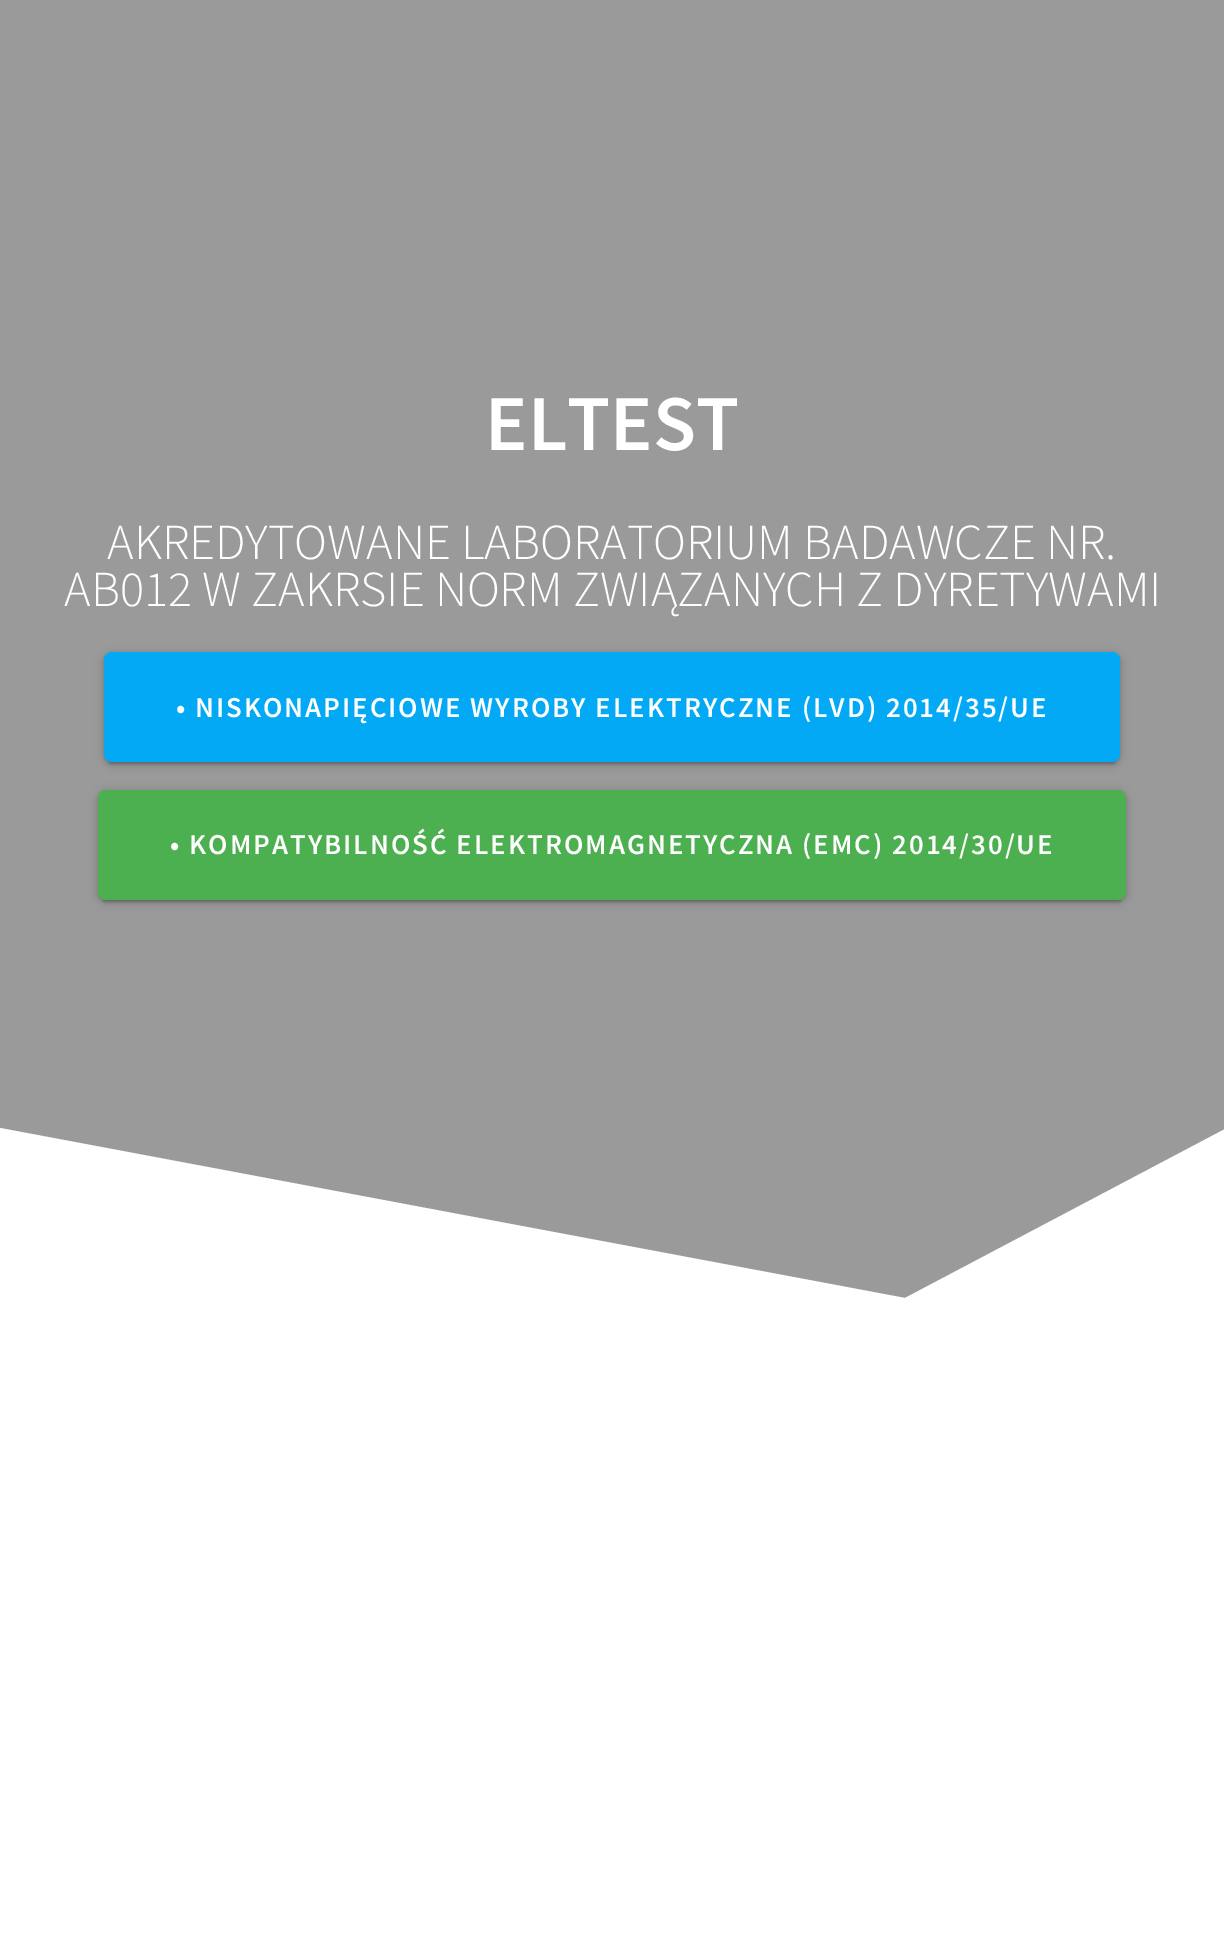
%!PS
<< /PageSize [1224 1947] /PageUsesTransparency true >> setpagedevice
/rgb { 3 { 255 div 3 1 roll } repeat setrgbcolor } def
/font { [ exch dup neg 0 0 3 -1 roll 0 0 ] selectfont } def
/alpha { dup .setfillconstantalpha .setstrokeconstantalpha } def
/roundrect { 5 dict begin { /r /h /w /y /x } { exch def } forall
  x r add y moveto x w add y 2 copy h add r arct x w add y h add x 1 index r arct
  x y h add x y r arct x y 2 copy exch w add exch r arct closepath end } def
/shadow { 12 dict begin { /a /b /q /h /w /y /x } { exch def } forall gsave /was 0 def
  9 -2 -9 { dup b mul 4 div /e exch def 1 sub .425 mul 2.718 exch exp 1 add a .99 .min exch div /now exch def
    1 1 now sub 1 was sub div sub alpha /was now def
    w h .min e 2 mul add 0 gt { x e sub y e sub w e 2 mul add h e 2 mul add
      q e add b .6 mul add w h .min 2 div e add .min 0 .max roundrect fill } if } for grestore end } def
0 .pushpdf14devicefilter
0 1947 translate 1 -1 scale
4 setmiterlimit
255 255 255 rgb
0 0 1224 1947 rectfill
154 154 154 rgb
0 0 1224 1298 rectfill
0 0 0 rgb
104 654 1016 110 8 5 0.12 shadow
108 662 1008 102 4 1 0.2 shadow
104 654 1016 110 8 2 0.14 shadow
3 169 244 rgb
104 652 1016 110 8 roundrect fill
0 0 0 rgb
98 792 1028 110 8 5 0.12 shadow
102 800 1020 102 4 1 0.2 shadow
98 792 1028 110 8 2 0.14 shadow
76 175 80 rgb
98 790 1028 110 8 roundrect fill
255 255 255 rgb
905 1298 moveto 0 1128 lineto 0 1308 lineto 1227 1308 lineto 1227 1128 lineto closepath fill
/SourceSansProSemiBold-SemiBold 79 font
485 450 moveto (ELTEST) show
/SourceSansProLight-Light 50.4 font
107 559 moveto (AKREDYTOWANE LABORATORIUM BADAWCZE NR.) show
64 606 moveto (AB012 W ZAKRSIE NORM ZWIĄZANYCH Z DYRETYWAMI) show
/SourceSansProSemiBold-SemiBold 28.8 font
176 717 moveto 2 0 (• NISKONAPIĘCIOWE WYROBY ELEKTRYCZNE \(LVD\) 2014/35/UE) ashow
170 854 moveto 2 0 (• KOMPATYBILNOŚĆ ELEKTROMAGNETYCZNA \(EMC\) 2014/30/UE) ashow
.poppdf14devicefilter showpage
